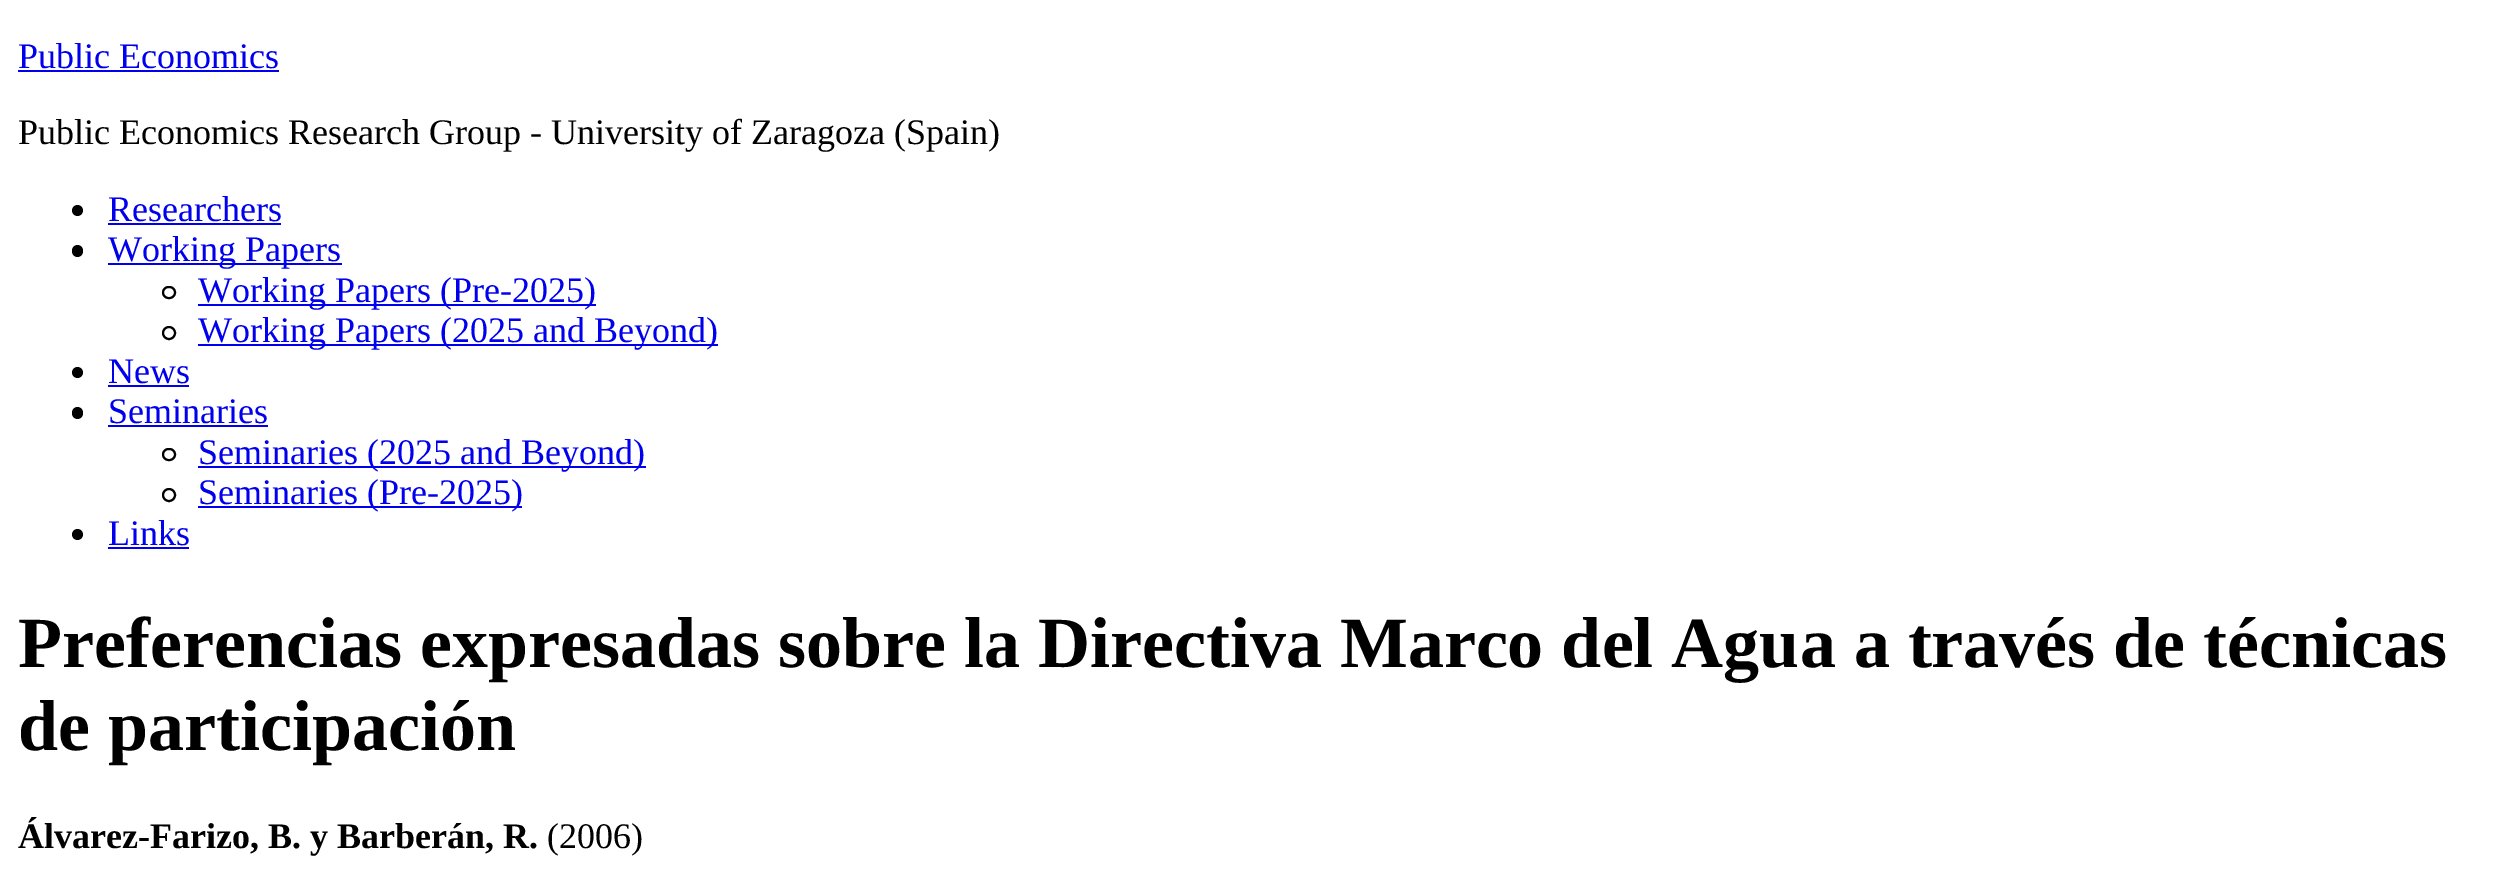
%!PS
<< /PageSize [2493 882] >> setpagedevice
/rgb { 3 { 255 div 3 1 roll } repeat setrgbcolor } def
/font { [ exch dup neg 0 0 3 -1 roll 0 0 ] selectfont } def
/circle { newpath 0 360 arc closepath } def
/roundrect { 5 dict begin { /r /h /w /y /x } { exch def } forall
  x r add y moveto x w add y 2 copy h add r arct x w add y h add x 1 index r arct
  x y h add x y r arct x y 2 copy exch w add exch r arct closepath end } def
0 882 translate 1 -1 scale
4 setmiterlimit
255 255 255 rgb
0 0 2493 882 rectfill
0 0 238 rgb
18 70 261 2 rectfill
0 0 0 rgb
77.5 210.5 5.5 circle fill
0 0 238 rgb
108 223 173 2 rectfill
0 0 0 rgb
72 245 11 12 5.5 roundrect fill
0 0 238 rgb
108 263 234 2 rectfill
0 0 0 rgb
2 setlinewidth
163 287 12 11 5.5 roundrect stroke
0 0 238 rgb
198 304 398 2 rectfill
0 0 0 rgb
169 333 6 circle stroke
0 0 238 rgb
198 344 520 2 rectfill
0 0 0 rgb
77.5 372.5 5.5 circle fill
0 0 238 rgb
108 385 81 2 rectfill
0 0 0 rgb
72 407 11 12 5.5 roundrect fill
0 0 238 rgb
108 425 160 2 rectfill
0 0 0 rgb
163 449 12 11 5.5 roundrect stroke
0 0 238 rgb
198 466 448 2 rectfill
0 0 0 rgb
169 495 6 circle stroke
0 0 238 rgb
198 506 324 2 rectfill
0 0 0 rgb
77.5 534.5 5.5 circle fill
0 0 238 rgb
108 547 81 2 rectfill
/LiberationSerif-Regular 36 font
18 68 moveto (Public Economics) show
0 0 0 rgb
18 144 moveto (Public Economics Research Group - University of Zaragoza \(Spain\)) show
0 0 238 rgb
[
  [(Researchers) 108 221]
  [(Working Papers) 108 261]
  [(Working Papers \(Pre-2025\)) 198 302]
  [(Working Papers \(2025 and Beyond\)) 198 342]
  [(News) 108 383]
  [(Seminaries) 108 423]
  [(Seminaries \(2025 and Beyond\)) 198 464]
  [(Seminaries \(Pre-2025\)) 198 504]
  [(Links) 108 545]
] { aload pop moveto show } forall
/LiberationSerif-Bold 72 font
0 0 0 rgb
18 667 moveto (Preferencias expresadas sobre la Directiva Marco del Agua a través de técnicas) show
18 750 moveto (de participación) show
/LiberationSerif-Bold 36 font
18 848 moveto (Álvarez-Farizo, B. y Barberán, R.) show
/LiberationSerif-Regular 36 font
547 848 moveto (\(2006\)) show
showpage
